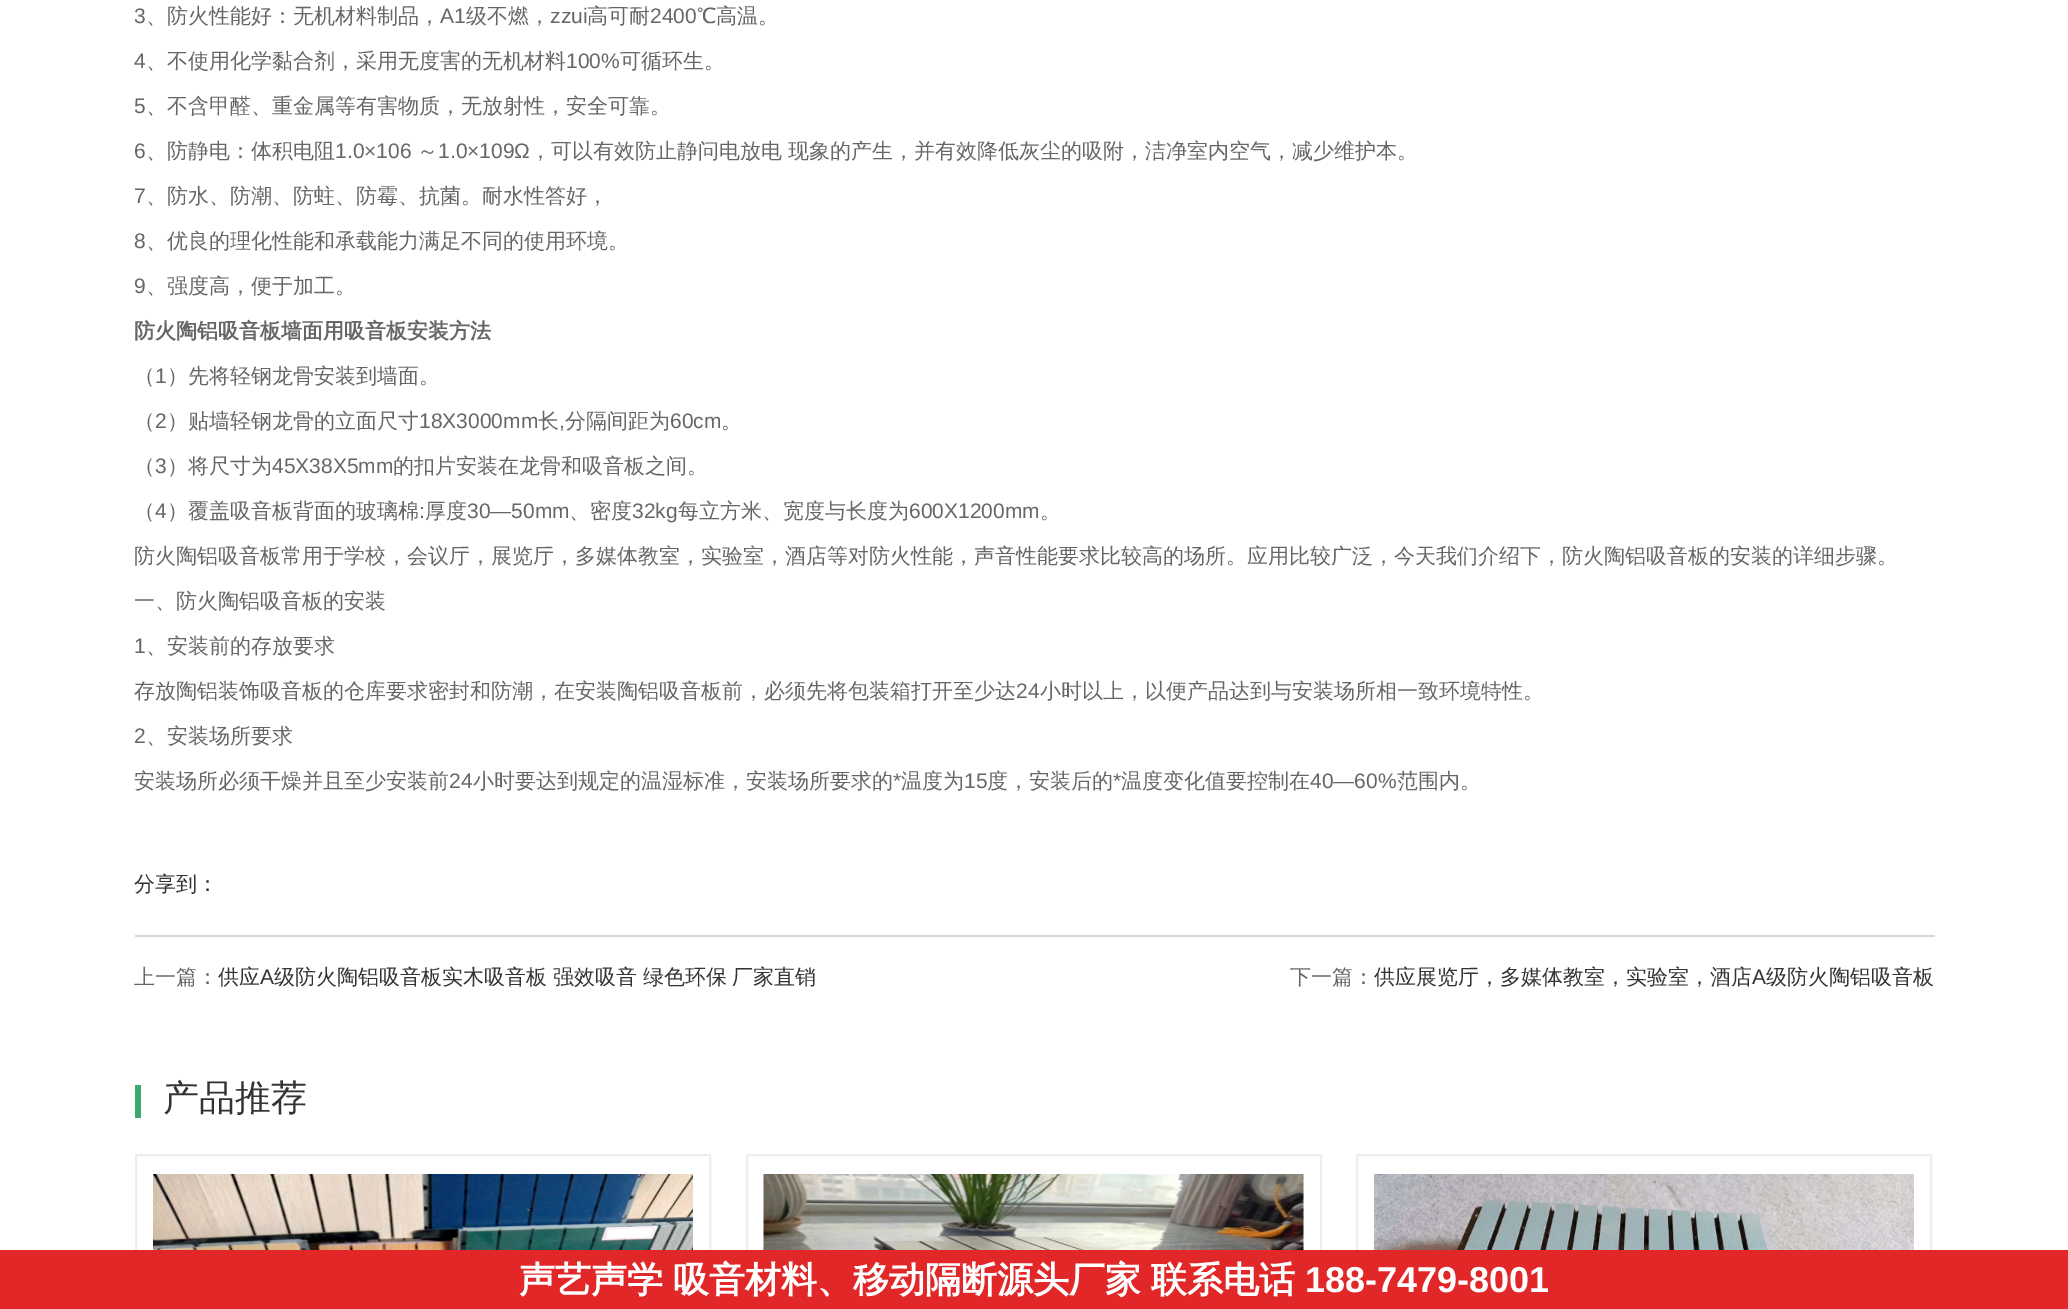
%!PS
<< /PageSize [2068 1309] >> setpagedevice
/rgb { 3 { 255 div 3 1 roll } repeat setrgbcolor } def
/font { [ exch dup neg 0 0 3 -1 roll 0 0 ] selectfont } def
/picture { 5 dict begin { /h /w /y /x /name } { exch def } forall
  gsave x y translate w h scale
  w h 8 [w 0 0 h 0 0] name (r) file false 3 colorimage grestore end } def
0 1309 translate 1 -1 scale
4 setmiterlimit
255 255 255 rgb
0 0 2068 1309 rectfill
215 214 214 rgb
135 935 1800 2 rectfill
59 168 111 rgb
135 1085 6 33 rectfill
238 238 238 rgb
2 setlinewidth
136 1155 574 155 rectstroke
(img/1.rgb) 153 1174 540 76 picture
747 1155 574 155 rectstroke
(img/2.rgb) 763 1174 541 76 picture
1357 1155 574 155 rectstroke
(img/3.rgb) 1374 1174 540 76 picture
225 39 39 rgb
0 1250 2068 59 rectfill
/LiberationSans-Regular 21 font
102 102 102 rgb
134 23 moveto (3) show
/WenQuanYiZenHei-Medium 21 font
146 23 moveto (、防火性能好：无机材料制品，) show
/LiberationSans-Regular 21 font
440 23 moveto (A1) show
/WenQuanYiZenHei-Medium 21 font
466 23 moveto (级不燃，) show
/LiberationSans-Regular 21 font
550 23 moveto (zzui) show
/WenQuanYiZenHei-Medium 21 font
587 23 moveto (高可耐) show
/LiberationSans-Regular 21 font
650 23 moveto (2400) show
/WenQuanYiZenHei-Medium 21 font
697 23 moveto (℃高温。) show
/LiberationSans-Regular 21 font
134 68 moveto (4) show
/WenQuanYiZenHei-Medium 21 font
146 68 moveto (、不使用化学黏合剂，采用无度害的无机材料) show
/LiberationSans-Regular 21 font
566 68 moveto (100%) show
/WenQuanYiZenHei-Medium 21 font
620 68 moveto (可循环生。) show
/LiberationSans-Regular 21 font
134 113 moveto (5) show
/WenQuanYiZenHei-Medium 21 font
146 113 moveto (、不含甲醛、重金属等有害物质，无放射性，安全可靠。) show
/LiberationSans-Regular 21 font
134 158 moveto (6) show
/WenQuanYiZenHei-Medium 21 font
146 158 moveto (、防静电：体积电阻) show
/LiberationSans-Regular 21 font
335 158 moveto (1.0×106) show
/WenQuanYiZenHei-Medium 21 font
417 158 moveto (～) show
/LiberationSans-Regular 21 font
438 158 moveto (1.0×109Ω) show
/WenQuanYiZenHei-Medium 21 font
530 158 moveto (，可以有效防止静问电放电 现象的产生，并有效降低灰尘的吸附，洁净室内空气，减少维护本。) show
/LiberationSans-Regular 21 font
134 203 moveto (7) show
/WenQuanYiZenHei-Medium 21 font
146 203 moveto (、防水、防潮、防蛀、防霉、抗菌。耐水性答好，) show
/LiberationSans-Regular 21 font
134 248 moveto (8) show
/WenQuanYiZenHei-Medium 21 font
146 248 moveto (、优良的理化性能和承载能力满足不同的使用环境。) show
/LiberationSans-Regular 21 font
134 293 moveto (9) show
/WenQuanYiZenHei-Medium 21 font
146 293 moveto (、强度高，便于加工。) show
/WenQuanYiZenHei-Bold 21 font
134 338 moveto (防火陶铝吸音板墙面用吸音板安装方法) show
/WenQuanYiZenHei-Medium 21 font
134 383 moveto (（) show
/LiberationSans-Regular 21 font
155 383 moveto (1) show
/WenQuanYiZenHei-Medium 21 font
167 383 moveto (）先将轻钢龙骨安装到墙面。) show
134 428 moveto (（) show
/LiberationSans-Regular 21 font
155 428 moveto (2) show
/WenQuanYiZenHei-Medium 21 font
167 428 moveto (）贴墙轻钢龙骨的立面尺寸) show
/LiberationSans-Regular 21 font
419 428 moveto (18X3000mm) show
/WenQuanYiZenHei-Medium 21 font
538 428 moveto (长) show
/LiberationSans-Regular 21 font
559 428 moveto (,) show
/WenQuanYiZenHei-Medium 21 font
565 428 moveto (分隔间距为) show
/LiberationSans-Regular 21 font
670 428 moveto (60cm) show
/WenQuanYiZenHei-Medium 21 font
721 428 moveto (。) show
134 473 moveto (（) show
/LiberationSans-Regular 21 font
155 473 moveto (3) show
/WenQuanYiZenHei-Medium 21 font
167 473 moveto (）将尺寸为) show
/LiberationSans-Regular 21 font
272 473 moveto (45X38X5mm) show
/WenQuanYiZenHei-Medium 21 font
393 473 moveto (的扣片安装在龙骨和吸音板之间。) show
134 518 moveto (（) show
/LiberationSans-Regular 21 font
155 518 moveto (4) show
/WenQuanYiZenHei-Medium 21 font
167 518 moveto (）覆盖吸音板背面的玻璃棉) show
/LiberationSans-Regular 21 font
419 518 moveto (:) show
/WenQuanYiZenHei-Medium 21 font
425 518 moveto (厚度) show
/LiberationSans-Regular 21 font
467 518 moveto (30—50mm) show
/WenQuanYiZenHei-Medium 21 font
569 518 moveto (、密度) show
/LiberationSans-Regular 21 font
632 518 moveto (32kg) show
/WenQuanYiZenHei-Medium 21 font
678 518 moveto (每立方米、宽度与长度为) show
/LiberationSans-Regular 21 font
909 518 moveto (600X1200mm) show
/WenQuanYiZenHei-Medium 21 font
[
  [(。) 1040 518]
  [(防火陶铝吸音板常用于学校，会议厅，展览厅，多媒体教室，实验室，酒店等对防火性能，声音性能要求比较高的场所。应用比较广泛，今天我们介绍下，防火陶铝吸音板的安装的详细步骤。) 134 563]
  [(一、防火陶铝吸音板的安装) 134 608]
] { aload pop moveto show } forall
/LiberationSans-Regular 21 font
134 653 moveto (1) show
/WenQuanYiZenHei-Medium 21 font
146 653 moveto (、安装前的存放要求) show
134 698 moveto (存放陶铝装饰吸音板的仓库要求密封和防潮，在安装陶铝吸音板前，必须先将包装箱打开至少达) show
/LiberationSans-Regular 21 font
1016 698 moveto (24) show
/WenQuanYiZenHei-Medium 21 font
1040 698 moveto (小时以上，以便产品达到与安装场所相一致环境特性。) show
/LiberationSans-Regular 21 font
134 743 moveto (2) show
/WenQuanYiZenHei-Medium 21 font
146 743 moveto (、安装场所要求) show
134 788 moveto (安装场所必须干燥并且至少安装前) show
/LiberationSans-Regular 21 font
449 788 moveto (24) show
/WenQuanYiZenHei-Medium 21 font
473 788 moveto (小时要达到规定的温湿标准，安装场所要求的) show
/LiberationSans-Regular 21 font
893 788 moveto (*) show
/WenQuanYiZenHei-Medium 21 font
901 788 moveto (温度为) show
/LiberationSans-Regular 21 font
964 788 moveto (15) show
/WenQuanYiZenHei-Medium 21 font
987 788 moveto (度，安装后的) show
/LiberationSans-Regular 21 font
1113 788 moveto (*) show
/WenQuanYiZenHei-Medium 21 font
1121 788 moveto (温度变化值要控制在) show
/LiberationSans-Regular 21 font
1310 788 moveto (40—60%) show
/WenQuanYiZenHei-Medium 21 font
1397 788 moveto (范围内。) show
51 51 51 rgb
134 891 moveto (分享到：) show
102 102 102 rgb
134 984 moveto (上一篇：) show
51 51 51 rgb
218 984 moveto (供应) show
/LiberationSans-Regular 21 font
260 984 moveto (A) show
/WenQuanYiZenHei-Medium 21 font
274 984 moveto -0.5 0 32 (级防火陶铝吸音板实木吸音板 强效吸音 绿色环保 厂家直销) widthshow
102 102 102 rgb
1290 984 moveto (下一篇：) show
51 51 51 rgb
1374 984 moveto (供应展览厅，多媒体教室，实验室，酒店) show
/LiberationSans-Regular 21 font
1752 984 moveto (A) show
/WenQuanYiZenHei-Medium 21 font
1766 984 moveto (级防火陶铝吸音板) show
/WenQuanYiZenHei-Medium 36 font
163 1110 moveto (产品推荐) show
/WenQuanYiZenHei-Bold 36 font
255 255 255 rgb
519 1292 moveto -1 0 32 (声艺声学 吸音材料、移动隔断源头厂家 联系电话) widthshow
/LiberationSans-Bold 36 font
1305 1292 moveto (188-7479-8001) show
showpage
